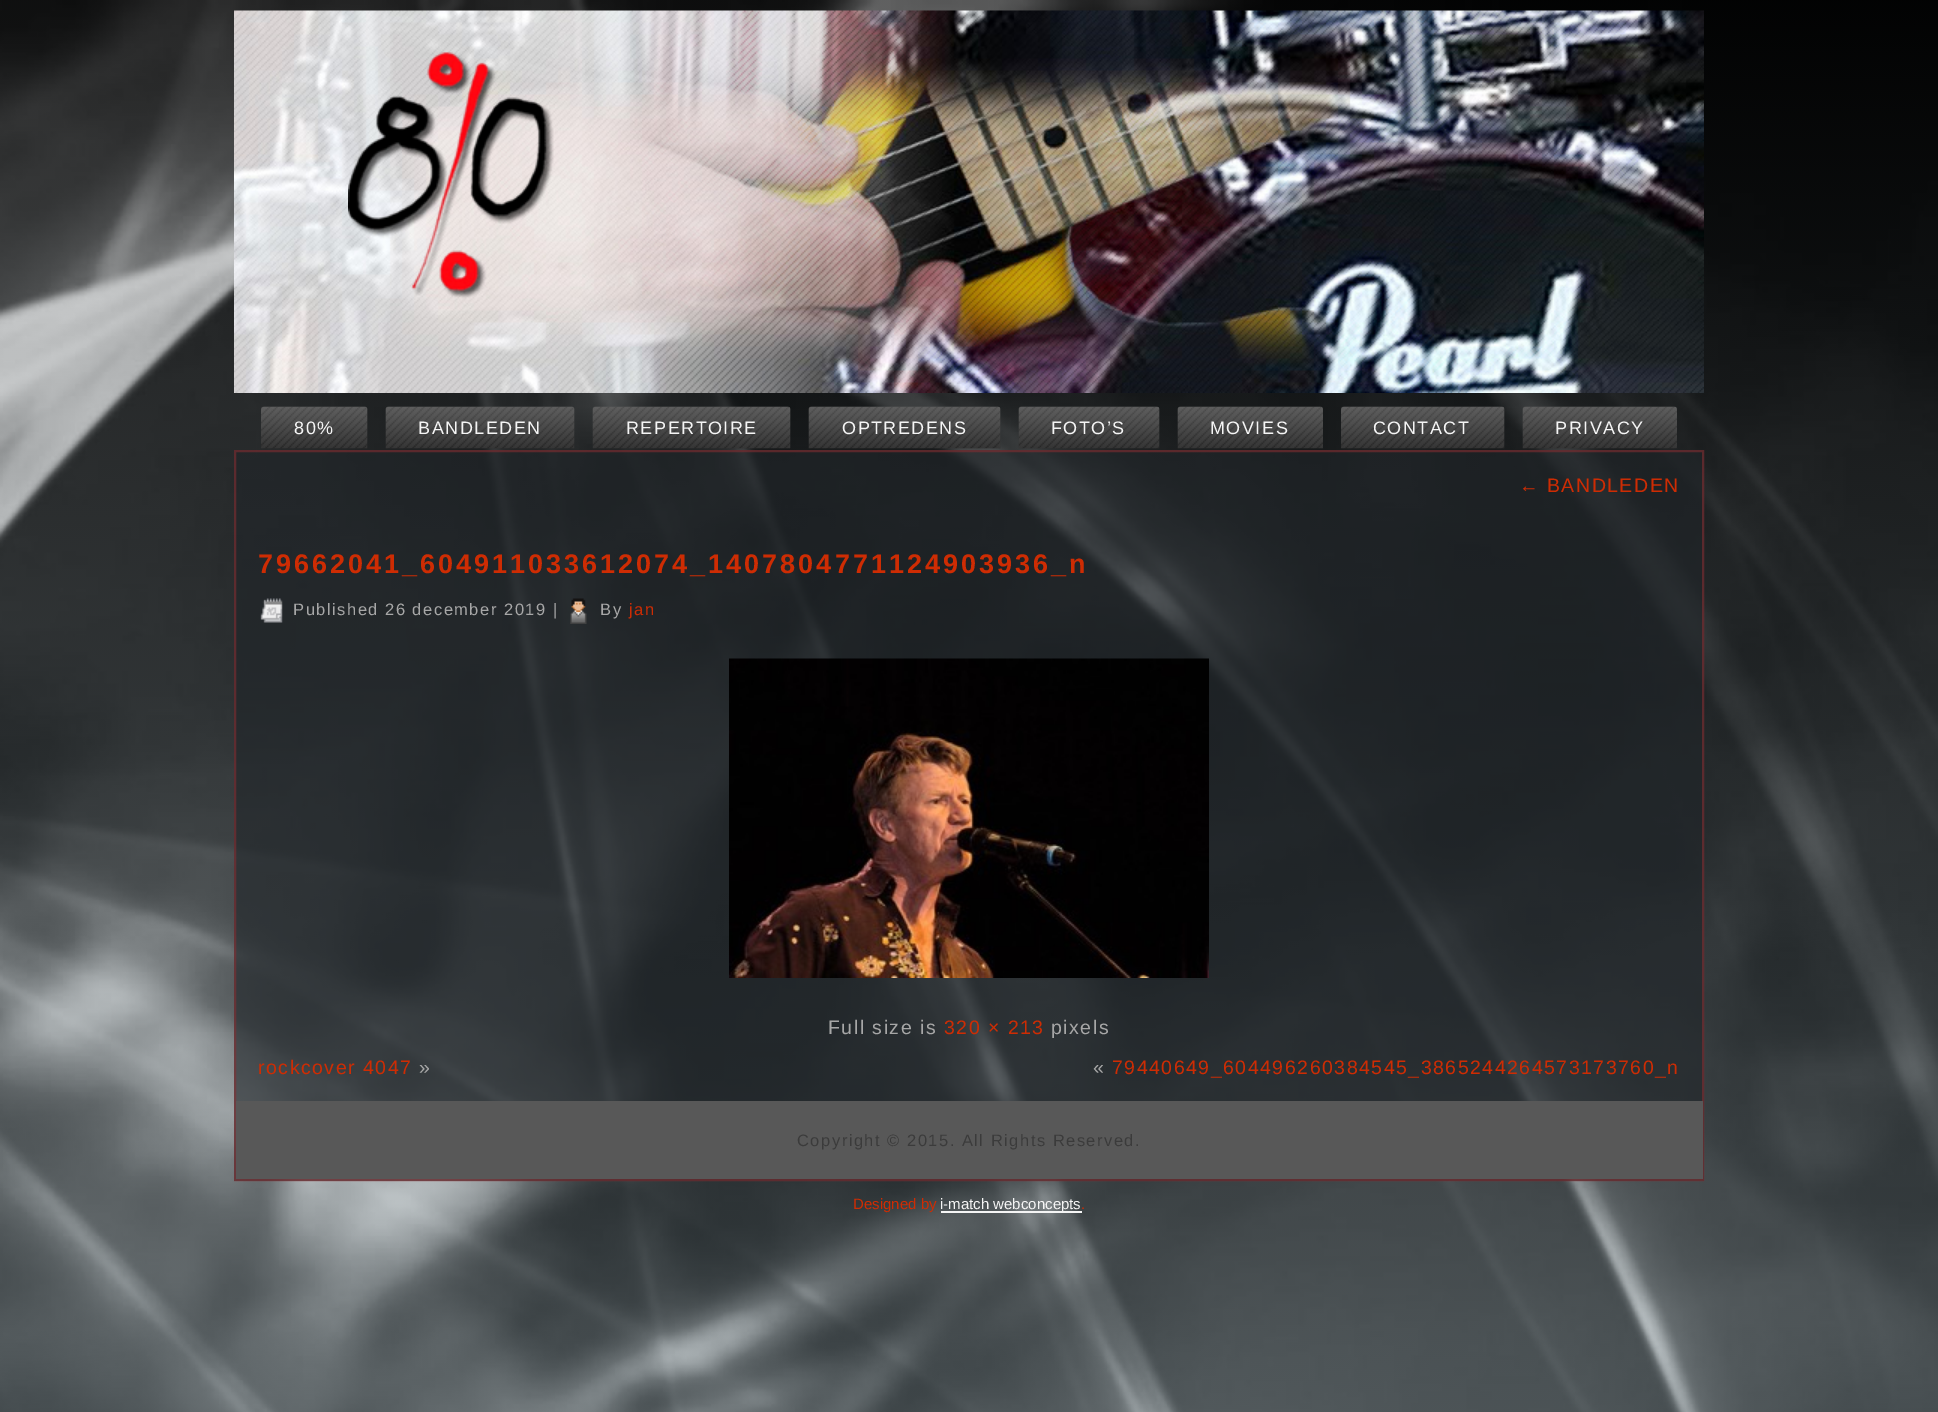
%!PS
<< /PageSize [1938 1412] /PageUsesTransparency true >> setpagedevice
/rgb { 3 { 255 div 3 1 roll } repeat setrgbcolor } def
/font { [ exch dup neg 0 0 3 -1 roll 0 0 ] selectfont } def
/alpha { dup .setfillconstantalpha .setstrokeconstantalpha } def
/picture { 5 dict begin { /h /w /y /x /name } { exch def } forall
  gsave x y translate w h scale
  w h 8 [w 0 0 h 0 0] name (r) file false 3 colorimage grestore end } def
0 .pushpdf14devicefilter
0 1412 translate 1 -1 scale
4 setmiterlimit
255 255 255 rgb
0 0 1938 1412 rectfill
(img/1.rgb) 0 0 1938 1412 picture
(img/2.rgb) 234 10 1470 383 picture
(img/3.rgb) 348 52 206 247 picture
(img/4.rgb) 261 406 107 43 picture
(img/5.rgb) 385 406 190 43 picture
(img/6.rgb) 592 406 199 43 picture
(img/7.rgb) 808 406 193 43 picture
(img/8.rgb) 1018 406 142 43 picture
(img/9.rgb) 1177 406 146 43 picture
(img/10.rgb) 1341 406 164 43 picture
(img/11.rgb) 1522 406 155 43 picture
0.6 alpha
31 36 40 rgb
234 450 1470 731 rectfill
131 45 49 rgb
2 setlinewidth
235 451 1468 729 rectstroke
1 alpha
(img/12.rgb) 260 598 23 25 picture
(img/13.rgb) 570 598 17 26 picture
(img/14.rgb) 729 658 480 320 picture
88 88 88 rgb
236 1101 1467 78 rectfill
245 245 245 rgb
941 1211 141 2 rectfill
/LiberationSans-Regular 18 font
294 434 moveto 1.5 0 (80%) ashow
418 434 moveto 1.5 0 (BANDLEDEN) ashow
626 434 moveto 1.5 0 (REPERTOIRE) ashow
842 434 moveto 1.5 0 (OPTREDENS) ashow
1051 434 moveto 1.5 0 (FOTO’S) ashow
1210 434 moveto 1.5 0 (MOVIES) ashow
1373 434 moveto 1.5 0 (CONTACT) ashow
1555 434 moveto 1.5 0 (PRIVACY) ashow
/LiberationSans-Regular 19.5 font
206 44 3 rgb
1519 492 moveto 1.5 0 (← BANDLEDEN) ashow
/LiberationSans-Bold 27 font
258 573 moveto 3 0 (79662041_604911033612074_1407804771124903936_n) ashow
/LiberationSans-Regular 16.5 font
167 167 167 rgb
293 615 moveto 1.5 0 (Published 26 december 2019 |) ashow
600 615 moveto 1.5 0 (By) ashow
206 44 3 rgb
629 615 moveto 1.5 0 (jan) ashow
/LiberationSans-Regular 19.5 font
167 167 167 rgb
828 1034 moveto 1.5 0 (Full size is) ashow
206 44 3 rgb
944 1034 moveto 1.5 0 (320 × 213) ashow
167 167 167 rgb
1051 1034 moveto 1.5 0 (pixels) ashow
206 44 3 rgb
258 1074 moveto 1.5 0 (rockcover 4047) ashow
167 167 167 rgb
419 1074 moveto 1.5 0 (») ashow
1093 1074 moveto 1.5 0 («) ashow
206 44 3 rgb
1112 1074 moveto 1.5 0 (79440649_604496260384545_3865244264573173760_n) ashow
/LiberationSans-Regular 16.5 font
59 59 59 rgb
797 1146 moveto 1.5 0 (Copyright © 2015. All Rights Reserved.) ashow
/LiberationSans-Regular 15 font
206 44 3 rgb
853 1209 moveto (Designed by) show
245 245 245 rgb
940 1209 moveto (i-match webconcepts) show
206 44 3 rgb
1081 1209 moveto (.) show
.poppdf14devicefilter showpage
